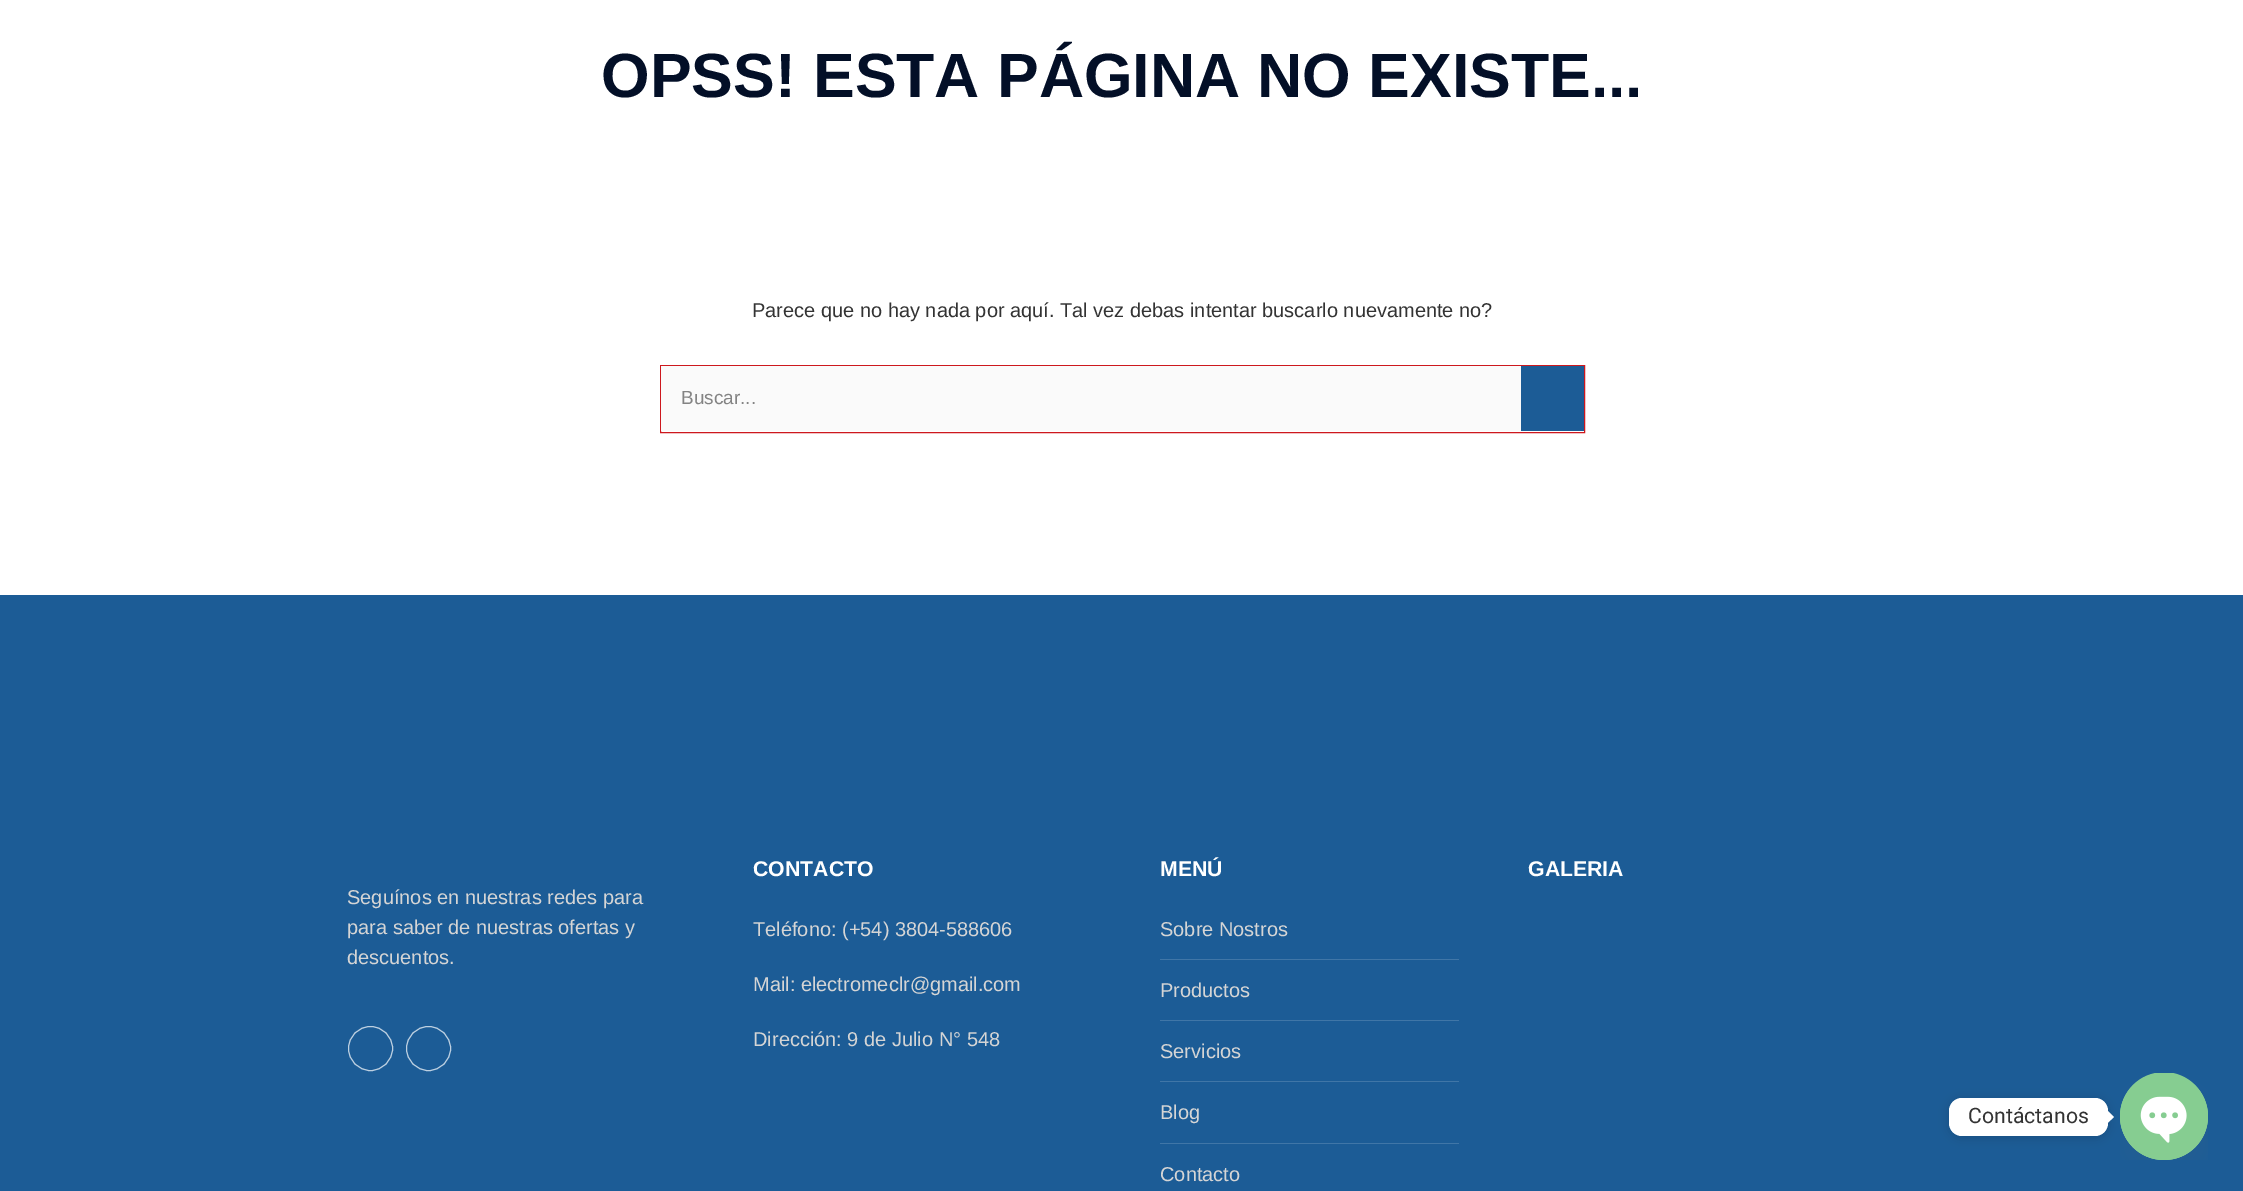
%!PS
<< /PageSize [2243 1191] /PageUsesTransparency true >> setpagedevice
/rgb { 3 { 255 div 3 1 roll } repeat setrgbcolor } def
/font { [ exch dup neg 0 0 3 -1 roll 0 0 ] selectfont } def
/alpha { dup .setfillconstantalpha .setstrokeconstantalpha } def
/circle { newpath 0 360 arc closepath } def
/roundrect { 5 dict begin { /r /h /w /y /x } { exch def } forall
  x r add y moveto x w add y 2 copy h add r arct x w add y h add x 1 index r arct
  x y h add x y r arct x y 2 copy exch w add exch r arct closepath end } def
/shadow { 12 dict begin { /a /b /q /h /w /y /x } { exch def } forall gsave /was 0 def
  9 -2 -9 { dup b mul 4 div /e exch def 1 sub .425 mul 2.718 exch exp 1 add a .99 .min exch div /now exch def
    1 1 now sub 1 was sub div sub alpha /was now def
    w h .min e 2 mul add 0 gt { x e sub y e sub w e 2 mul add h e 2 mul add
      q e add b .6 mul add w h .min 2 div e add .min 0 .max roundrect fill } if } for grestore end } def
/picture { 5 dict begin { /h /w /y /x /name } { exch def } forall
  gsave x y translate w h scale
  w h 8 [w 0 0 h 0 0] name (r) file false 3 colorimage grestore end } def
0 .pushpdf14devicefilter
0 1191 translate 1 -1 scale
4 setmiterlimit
255 255 255 rgb
0 0 2243 1191 rectfill
205 24 30 rgb
660.5 365.5 924 67 rectstroke
[
  [661 366 860 65 250 250 250]
  [1521 366 63 65 28 92 150]
  [0 595 2243 596 28 92 150]
  [1160 959 299 1 64 118 167]
  [1160 1020 299 1 64 118 167]
  [1160 1081 299 1 64 118 167]
  [1160 1143 299 1 64 118 167]
] { aload pop rgb rectfill } forall
189 208 225 rgb
370.5 1048.5 22 circle stroke
428.5 1048.5 22 circle stroke
0 0 0 rgb
1949 1099 159 39 13 5 0.15 shadow
255 255 255 rgb
1949 1098 159 38 13 roundrect fill
2107.5 1123 moveto 2107.5 1110.5 lineto 2114 1117 lineto closepath fill
134 205 145 rgb
2120 1073 88 87 43.5 roundrect fill
(img/1.rgb) 2120 1073 88 87 picture
/LiberationSans-Bold 62.5 font
3 15 39 rgb
601 97 moveto (OPSS! ESTA PÁGINA NO EXISTE...) show
/LiberationSans-Regular 20 font
51 51 51 rgb
752 317 moveto (Parece que no hay nada por aquí. Tal vez debas intentar buscarlo nuevamente no?) show
/LiberationSans-Regular 19 font
131 131 131 rgb
681 404 moveto (Buscar...) show
/LiberationSans-Bold 21.25 font
255 255 255 rgb
753 876 moveto (CONTACTO) show
/LiberationSans-Regular 20 font
213 213 213 rgb
[
  [(Teléfono: \(+54\) 3804-588606) 753 936]
  [(Mail: electromeclr@gmail.com) 753 991]
  [(Dirección: 9 de Julio N° 548) 753 1046]
] { aload pop moveto show } forall
/LiberationSans-Bold 21.25 font
255 255 255 rgb
1160 876 moveto (MENÚ) show
/LiberationSans-Regular 20 font
213 213 213 rgb
[
  [(Sobre Nostros) 1160 936]
  [(Productos) 1160 997]
  [(Servicios) 1160 1058]
  [(Blog) 1160 1119]
  [(Contacto) 1160 1181]
] { aload pop moveto show } forall
/LiberationSans-Bold 21.25 font
255 255 255 rgb
1528 876 moveto (GALERIA) show
/LiberationSans-Regular 20 font
213 213 213 rgb
[
  [(Seguínos en nuestras redes para) 347 904]
  [(para saber de nuestras ofertas y) 347 934]
  [(descuentos.) 347 964]
] { aload pop moveto show } forall
/Roboto-Regular 21.25 font
51 51 51 rgb
1968 1123 moveto (Contáctanos) show
.poppdf14devicefilter showpage
